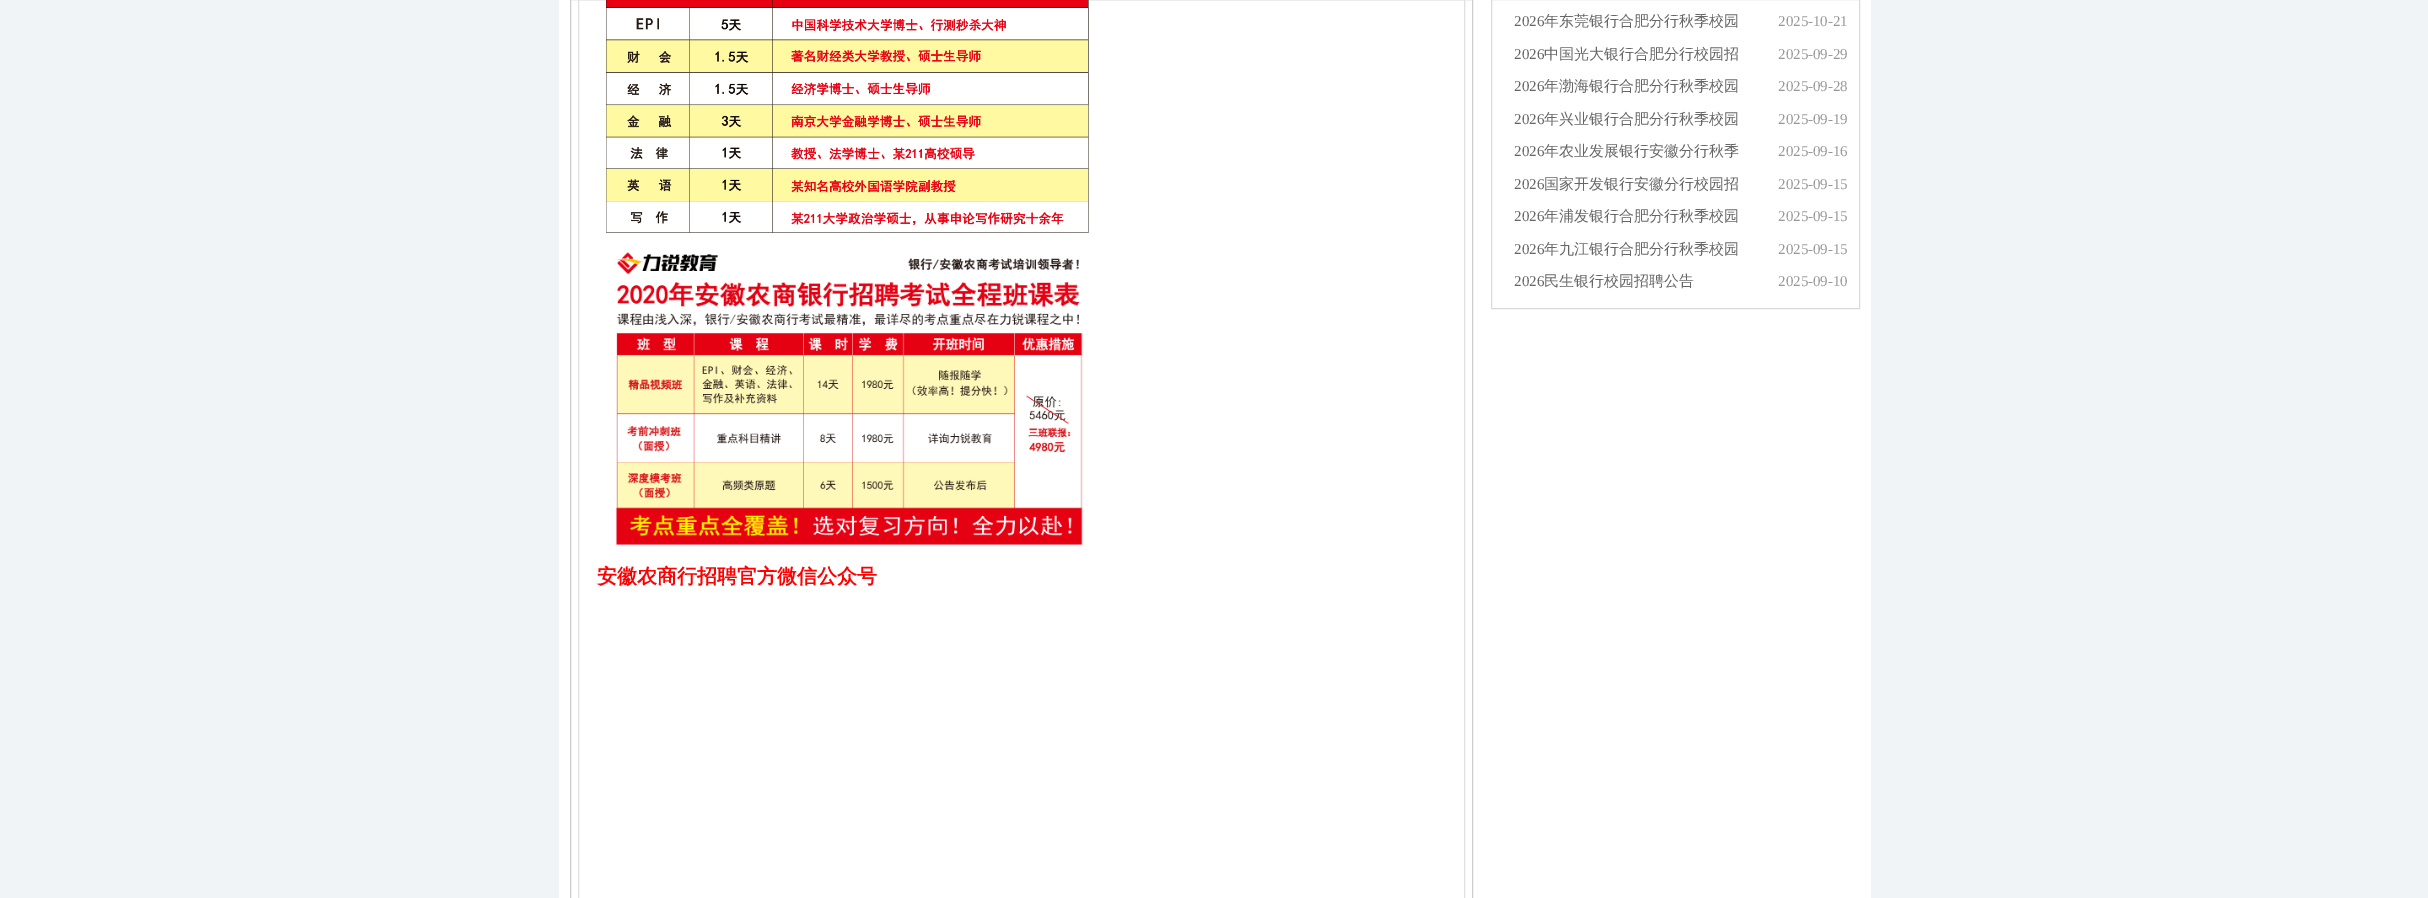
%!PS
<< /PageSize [2428 898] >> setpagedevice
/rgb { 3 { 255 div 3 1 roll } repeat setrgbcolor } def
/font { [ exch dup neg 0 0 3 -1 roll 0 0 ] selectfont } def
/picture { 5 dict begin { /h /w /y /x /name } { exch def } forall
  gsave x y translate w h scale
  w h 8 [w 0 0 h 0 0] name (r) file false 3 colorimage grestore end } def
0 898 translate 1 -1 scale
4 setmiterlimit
240 244 247 rgb
0 0 2428 898 rectfill
255 255 255 rgb
559 0 1312 898 rectfill
218 218 218 rgb
1491.5 -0.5 368 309 rectstroke
204 204 204 rgb
570.5 -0.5 902 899 rectstroke
224 224 224 rgb
578.5 -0.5 886 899 rectstroke
(img/1.rgb) 606 0 483 233 picture
(img/2.rgb) 616 252 467 293 picture
/LiberationSerif-Regular 15 font
102 102 102 rgb
1514 26 moveto (2026) show
/WenQuanYiZenHei-Medium 15 font
1544 26 moveto (年东莞银行合肥分行秋季校园) show
/LiberationSerif-Regular 15 font
153 153 153 rgb
1778 26 moveto (2025-10-21) show
102 102 102 rgb
1514 59 moveto (2026) show
/WenQuanYiZenHei-Medium 15 font
1544 59 moveto (中国光大银行合肥分行校园招) show
/LiberationSerif-Regular 15 font
153 153 153 rgb
1778 59 moveto (2025-09-29) show
102 102 102 rgb
1514 91 moveto (2026) show
/WenQuanYiZenHei-Medium 15 font
1544 91 moveto (年渤海银行合肥分行秋季校园) show
/LiberationSerif-Regular 15 font
153 153 153 rgb
1778 91 moveto (2025-09-28) show
102 102 102 rgb
1514 124 moveto (2026) show
/WenQuanYiZenHei-Medium 15 font
1544 124 moveto (年兴业银行合肥分行秋季校园) show
/LiberationSerif-Regular 15 font
153 153 153 rgb
1778 124 moveto (2025-09-19) show
102 102 102 rgb
1514 156 moveto (2026) show
/WenQuanYiZenHei-Medium 15 font
1544 156 moveto (年农业发展银行安徽分行秋季) show
/LiberationSerif-Regular 15 font
153 153 153 rgb
1778 156 moveto (2025-09-16) show
102 102 102 rgb
1514 189 moveto (2026) show
/WenQuanYiZenHei-Medium 15 font
1544 189 moveto (国家开发银行安徽分行校园招) show
/LiberationSerif-Regular 15 font
153 153 153 rgb
1778 189 moveto (2025-09-15) show
102 102 102 rgb
1514 221 moveto (2026) show
/WenQuanYiZenHei-Medium 15 font
1544 221 moveto (年浦发银行合肥分行秋季校园) show
/LiberationSerif-Regular 15 font
153 153 153 rgb
1778 221 moveto (2025-09-15) show
102 102 102 rgb
1514 254 moveto (2026) show
/WenQuanYiZenHei-Medium 15 font
1544 254 moveto (年九江银行合肥分行秋季校园) show
/LiberationSerif-Regular 15 font
153 153 153 rgb
1778 254 moveto (2025-09-15) show
102 102 102 rgb
1514 286 moveto (2026) show
/WenQuanYiZenHei-Medium 15 font
1544 286 moveto (民生银行校园招聘公告) show
/LiberationSerif-Regular 15 font
153 153 153 rgb
1778 286 moveto (2025-09-10) show
/WenQuanYiZenHei-Bold 20 font
255 0 0 rgb
597 583 moveto (安徽农商行招聘官方微信公众号) show
showpage
